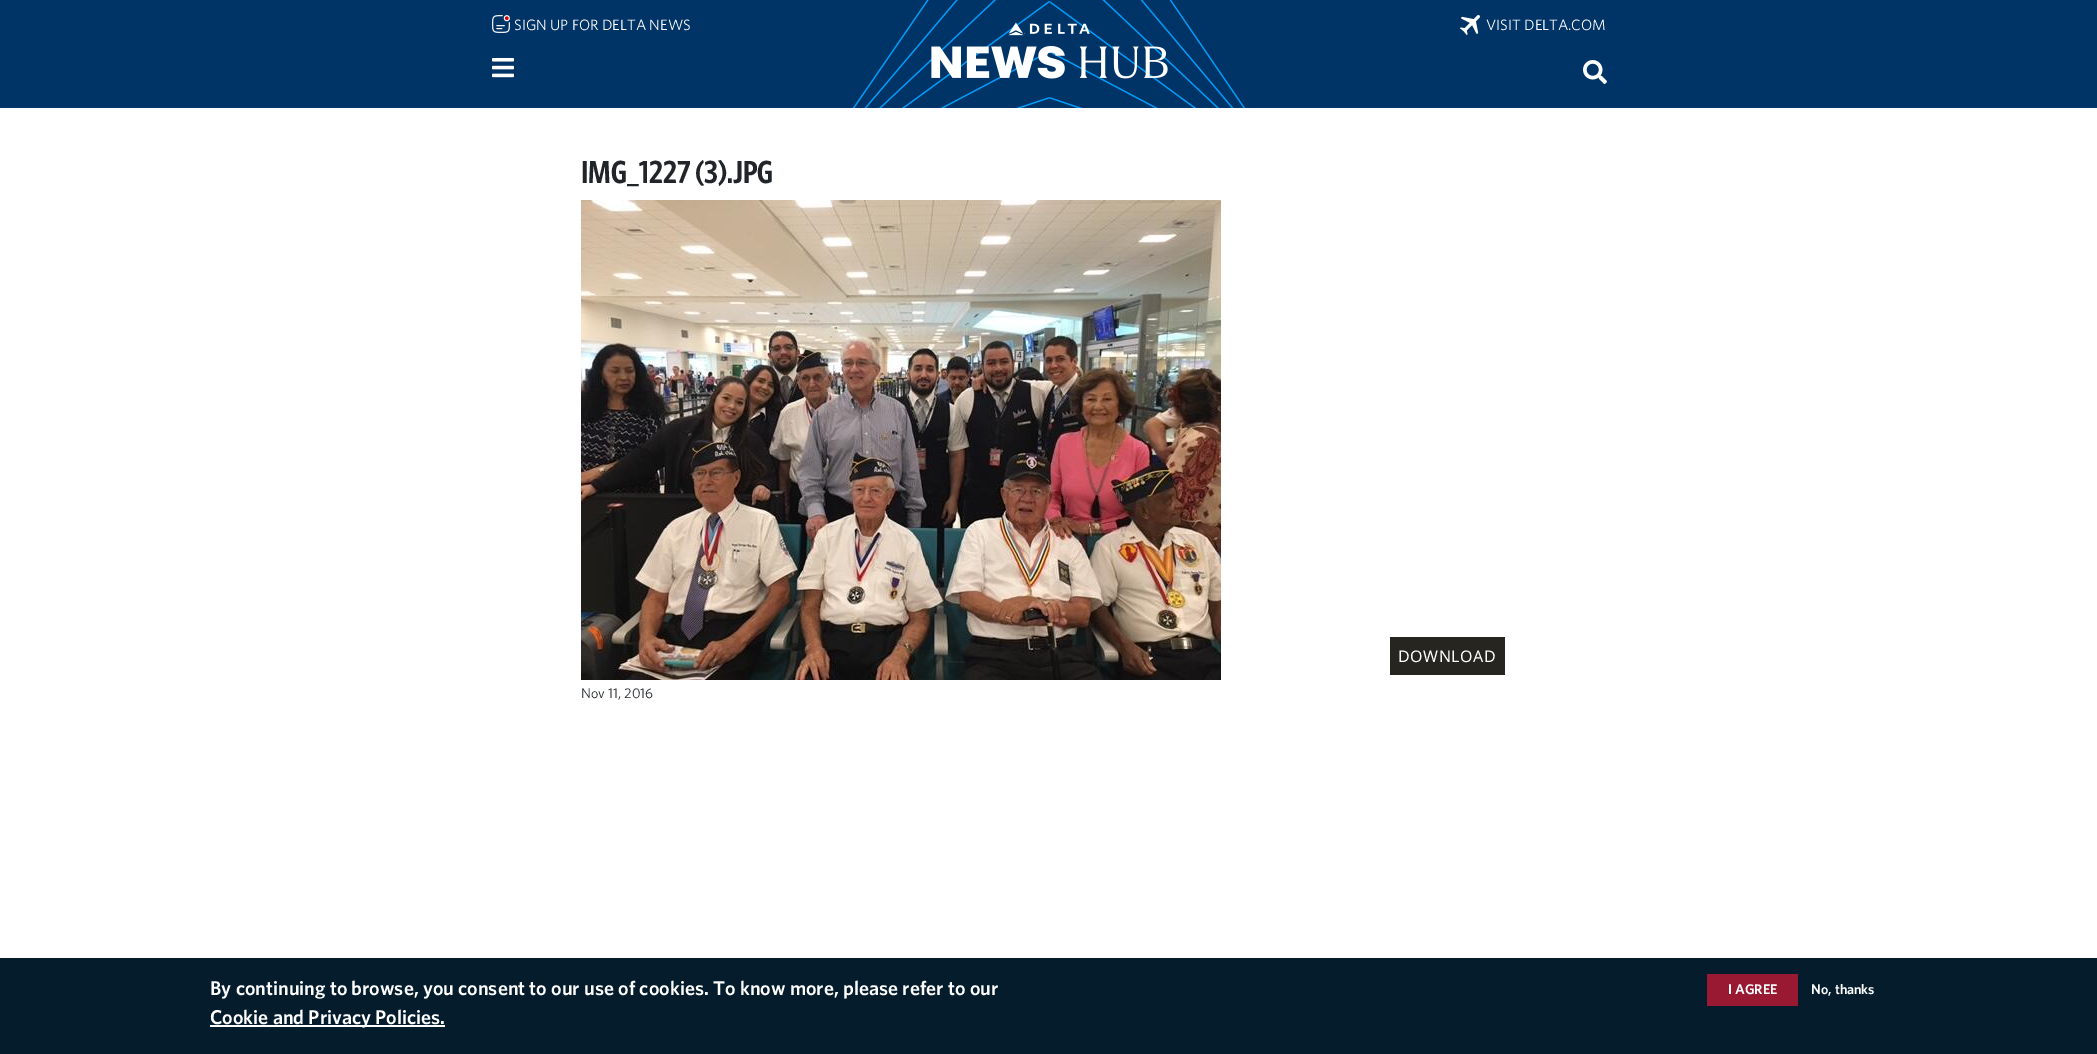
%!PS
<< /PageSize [2097 1054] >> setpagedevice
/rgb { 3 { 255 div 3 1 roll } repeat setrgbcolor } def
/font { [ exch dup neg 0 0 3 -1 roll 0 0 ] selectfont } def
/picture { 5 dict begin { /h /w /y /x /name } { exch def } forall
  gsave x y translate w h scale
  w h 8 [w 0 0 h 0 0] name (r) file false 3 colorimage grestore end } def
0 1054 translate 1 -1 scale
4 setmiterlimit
255 255 255 rgb
0 0 2097 1054 rectfill
0 51 102 rgb
0 0 2097 108 rectfill
(img/1.rgb) 852 0 394 108 picture
(img/2.rgb) 492 15 18 18 picture
(img/3.rgb) 1460 15 20 20 picture
(img/4.rgb) 492 58 22 20 picture
(img/5.rgb) 1583 60 24 24 picture
(img/6.rgb) 581 200 640 480 picture
[
  [1390 637 115 38 39 37 31]
  [0 958 2097 96 4 28 44]
  [210 1025 235 2 255 255 255]
  [1707 974 91 32 153 25 51]
] { aload pop rgb rectfill } forall
/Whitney-Regular 15 font
255 255 255 rgb
514 30 moveto (SIGN UP FOR DELTA NEWS) show
1486 30 moveto (VISIT DELTA.COM) show
/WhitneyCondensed-SemiBold 32 font
33 37 41 rgb
581 183 moveto (IMG_1227 \(3\).JPG) show
/NotoSans-Regular 16 font
255 255 255 rgb
1398 662 moveto 0.5 0 (DOWNLOAD) ashow
/Whitney-Regular 14 font
33 37 41 rgb
581 698 moveto (Nov 11, 2016) show
/Whitney-SemiBold 20 font
255 255 255 rgb
210 995 moveto (By continuing to browse, you consent to our use of cookies. To know more, please refer to our) show
210 1024 moveto (Cookie and Privacy Policies.) show
/Whitney-SemiBold 14 font
1728 994 moveto (I AGREE) show
1811 994 moveto (No, thanks) show
showpage
